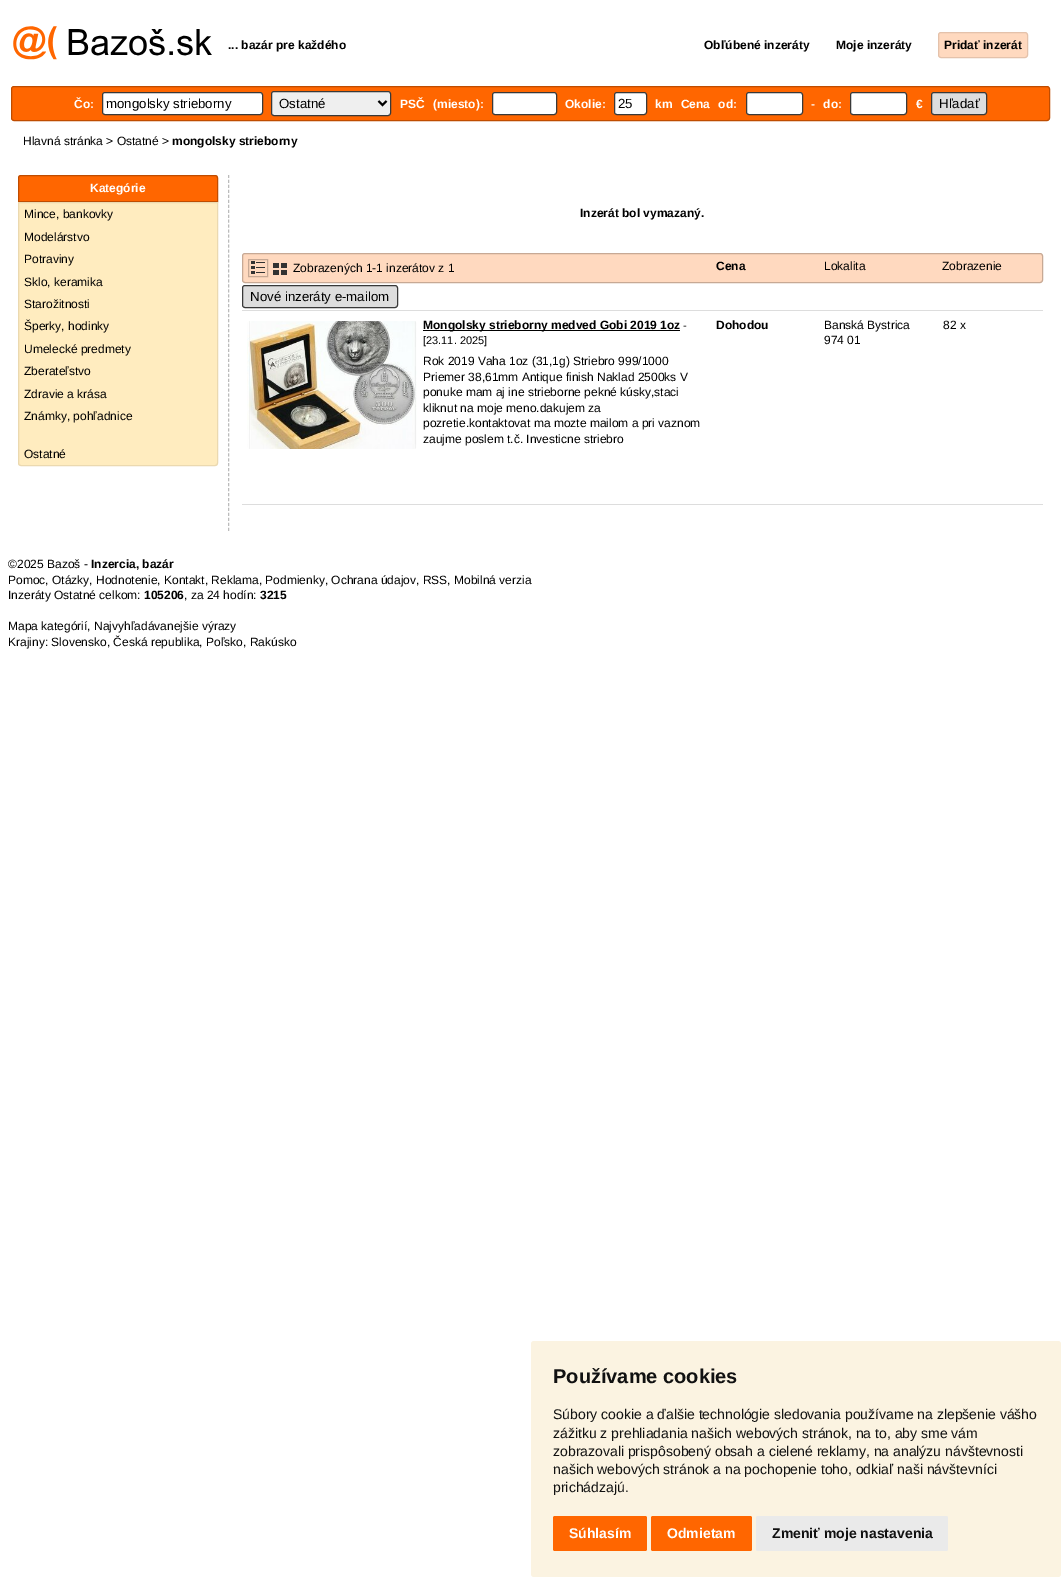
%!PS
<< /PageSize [1061 1577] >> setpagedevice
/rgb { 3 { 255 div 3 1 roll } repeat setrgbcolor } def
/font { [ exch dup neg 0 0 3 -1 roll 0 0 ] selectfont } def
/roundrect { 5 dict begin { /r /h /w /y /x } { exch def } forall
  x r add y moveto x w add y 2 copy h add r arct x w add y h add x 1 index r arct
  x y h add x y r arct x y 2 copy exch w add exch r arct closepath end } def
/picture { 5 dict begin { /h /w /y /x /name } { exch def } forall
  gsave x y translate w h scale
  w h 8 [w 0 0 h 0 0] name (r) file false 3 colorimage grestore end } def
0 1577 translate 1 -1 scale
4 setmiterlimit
255 255 255 rgb
0 0 1061 1577 rectfill
(img/1.rgb) 13 26 199 34 picture
255 217 191 rgb
938.5 32.5 89 25 2.5 roundrect gsave fill grestore
228 194 171 rgb
stroke
255 102 0 rgb
11.5 86.5 1038 34 2.5 roundrect gsave fill grestore
191 76 0 rgb
stroke
255 255 255 rgb
102.5 92.5 160 22 2.5 roundrect gsave fill grestore
57 57 57 rgb
stroke
239 239 239 rgb
271.5 91.5 119 24 2.5 roundrect gsave fill grestore
57 57 57 rgb
stroke
0 0 0 rgb
2 setlinewidth
378.5 101 moveto 382.5 105 lineto 386.5 101 lineto stroke
255 255 255 rgb
492.5 92.5 64 22 2.5 roundrect gsave fill grestore
57 57 57 rgb
1 setlinewidth
stroke
255 255 255 rgb
614.5 92.5 32 22 2.5 roundrect gsave fill grestore
57 57 57 rgb
stroke
255 255 255 rgb
746.5 92.5 56 22 2.5 roundrect gsave fill grestore
57 57 57 rgb
stroke
255 255 255 rgb
850.5 92.5 56 22 2.5 roundrect gsave fill grestore
57 57 57 rgb
stroke
221 221 221 rgb
931.5 92.5 55 22 2.5 roundrect gsave fill grestore
57 57 57 rgb
stroke
187 187 187 rgb
[3 1.97] 0 setdash
228.5 175 moveto 228.5 531 lineto stroke
255 102 0 rgb
21 175.5 moveto 215 175.5 lineto 216.5 175.5 217.5 176.5 217.5 178 curveto 217.5 201.5 lineto 18.5 201.5 lineto 18.5 178 lineto 18.5 176.5 19.5 175.5 21 175.5 curveto closepath gsave fill grestore
191 76 0 rgb
[] 0 setdash
stroke
255 236 191 rgb
18.5 202.5 moveto 217.5 202.5 lineto 217.5 463 lineto 217.5 464.5 216.5 465.5 215 465.5 curveto 21 465.5 lineto 19.5 465.5 18.5 464.5 18.5 463 curveto closepath gsave fill grestore
235 217 176 rgb
stroke
255 217 191 rgb
242.5 253.5 800 29 2.5 roundrect gsave fill grestore
199 169 149 rgb
stroke
248.5 259.5 19 17 rectstroke
(img/2.rgb) 251 261 14 13 picture
(img/3.rgb) 273 263 14 12 picture
221 221 221 rgb
242.5 285.5 155 22 2.5 roundrect gsave fill grestore
57 57 57 rgb
stroke
221 221 221 rgb
242 310 801 1 rectfill
(img/4.rgb) 247 321 170 128 picture
0 0 0 rgb
423 330 257 1 rectfill
221 221 221 rgb
242 504 801 1 rectfill
251 243 225 rgb
531 1341 530 236 3 roundrect fill
255 102 0 rgb
553 1516 94 35 2 roundrect fill
651 1516 101 35 2 roundrect fill
234 234 234 rgb
756 1516 192 35 2 roundrect fill
/LiberationSans-Bold 12 font
0 0 0 rgb
[
  [(... bazár pre každého) 228 49]
  [(Obľúbené inzeráty) 704 49]
  [(Moje inzeráty) 836 49]
  [(Pridať inzerát) 944 49]
] { aload pop moveto show } forall
255 255 255 rgb
74 108 moveto (Čo:) show
/LiberationSans-Regular 13.25 font
0 0 0 rgb
106 108 moveto (mongolsky strieborny) show
279 108 moveto (Ostatné) show
/LiberationSans-Bold 12 font
255 255 255 rgb
400 108 moveto 5 0 32 (PSČ \(miesto\):) widthshow
565 108 moveto (Okolie:) show
/LiberationSans-Regular 13.25 font
0 0 0 rgb
618 108 moveto (25) show
/LiberationSans-Bold 12 font
255 255 255 rgb
655 108 moveto 5 0 32 (km Cena od:) widthshow
811 108 moveto 5 0 32 (- do:) widthshow
916 108 moveto (€) show
/LiberationSans-Regular 13.25 font
0 0 0 rgb
939 108 moveto (Hľadať) show
/LiberationSans-Regular 12 font
23 145 moveto (Hlavná stránka > Ostatné >) show
/LiberationSans-Bold 12 font
172 145 moveto (mongolsky strieborny) show
255 255 255 rgb
90 192 moveto (Kategórie) show
/LiberationSans-Regular 12 font
0 0 0 rgb
[
  [(Mince, bankovky) 24 218]
  [(Modelárstvo) 24 241]
  [(Potraviny) 24 263]
  [(Sklo, keramika) 24 286]
  [(Starožitnosti) 24 308]
  [(Šperky, hodinky) 24 330]
  [(Umelecké predmety) 24 353]
  [(Zberateľstvo) 24 375]
  [(Zdravie a krása) 24 398]
  [(Známky, pohľadnice) 24 420]
  [(Ostatné) 24 458]
] { aload pop moveto show } forall
/LiberationSans-Bold 12 font
580 217 moveto (Inzerát bol vymazaný.) show
/LiberationSans-Regular 12 font
293 272 moveto (Zobrazených 1-1 inzerátov z 1) show
/LiberationSans-Bold 12 font
716 270 moveto (Cena) show
/LiberationSans-Regular 12 font
824 270 moveto (Lokalita) show
942 270 moveto (Zobrazenie) show
/LiberationSans-Regular 13.25 font
250 301 moveto (Nové inzeráty e-mailom) show
/LiberationSans-Bold 12 font
423 329 moveto (Mongolsky strieborny medved Gobi 2019 1oz) show
/LiberationSans-Regular 11 font
683 329 moveto (-) show
423 344 moveto ([23.11. 2025]) show
/LiberationSans-Regular 12 font
[
  [(Rok 2019 Vaha 1oz \(31,1g\) Striebro 999/1000) 423 365]
  [(Priemer 38,61mm Antique finish Naklad 2500ks V) 423 381]
  [(ponuke mam aj ine strieborne pekné kúsky,staci) 423 396]
  [(kliknut na moje meno.dakujem za) 423 412]
  [(pozretie.kontaktovat ma mozte mailom a pri vaznom) 423 427]
  [(zaujme poslem t.č. Investicne striebro) 423 443]
] { aload pop moveto show } forall
/LiberationSans-Bold 12 font
716 329 moveto (Dohodou) show
/LiberationSans-Regular 12 font
[
  [(Banská Bystrica) 824 329]
  [(974 01) 824 344]
  [(82 x) 943 329]
  [(©2025 Bazoš -) 8 568]
] { aload pop moveto show } forall
/LiberationSans-Bold 12 font
91 568 moveto (Inzercia, bazár) show
/LiberationSans-Regular 12 font
8 584 moveto (Pomoc, Otázky, Hodnotenie, Kontakt, Reklama, Podmienky, Ochrana údajov, RSS, Mobilná verzia) show
8 599 moveto (Inzeráty Ostatné celkom:) show
/LiberationSans-Bold 12 font
144 599 moveto (105206) show
/LiberationSans-Regular 12 font
184 599 moveto (, za 24 hodín:) show
/LiberationSans-Bold 12 font
260 599 moveto (3215) show
/LiberationSans-Regular 12 font
8 630 moveto (Mapa kategórií, Najvyhľadávanejšie výrazy) show
8 646 moveto (Krajiny: Slovensko, Česká republika, Poľsko, Rakúsko) show
/LiberationSans-Bold 20 font
17 17 17 rgb
553 1383 moveto (Používame cookies) show
/LiberationSans-Regular 14 font
[
  [(Súbory cookie a ďalšie technológie sledovania používame na zlepšenie vášho) 553 1419]
  [(zážitku z prehliadania našich webových stránok, na to, aby sme vám) 553 1438]
  [(zobrazovali prispôsobený obsah a cielené reklamy, na analýzu návštevnosti) 553 1456]
  [(našich webových stránok a na pochopenie toho, odkiaľ naši návštevníci) 553 1474]
  [(prichádzajú.) 553 1492]
] { aload pop moveto show } forall
/LiberationSans-Bold 14 font
255 255 255 rgb
569 1538 moveto (Súhlasím) show
667 1538 moveto (Odmietam) show
17 17 17 rgb
772 1538 moveto (Zmeniť moje nastavenia) show
showpage
